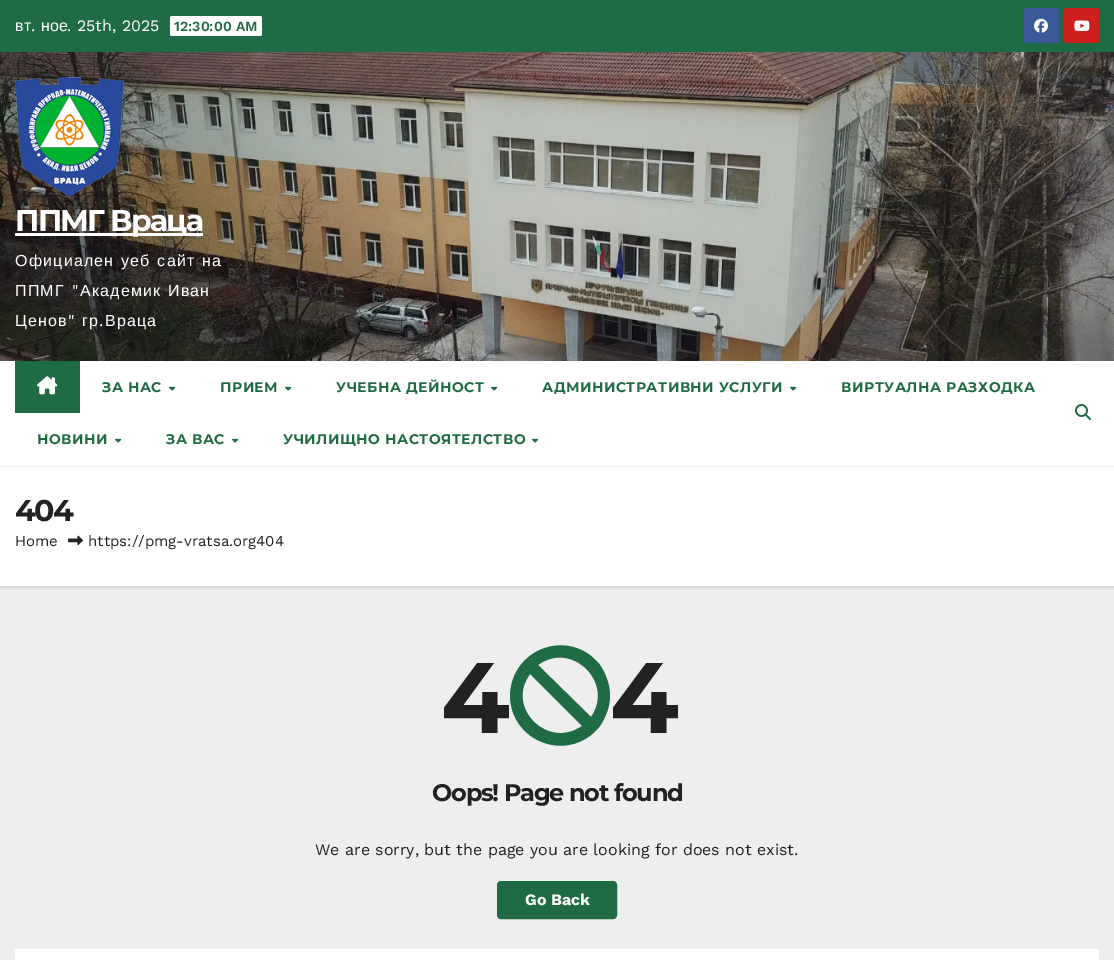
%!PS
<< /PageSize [1114 960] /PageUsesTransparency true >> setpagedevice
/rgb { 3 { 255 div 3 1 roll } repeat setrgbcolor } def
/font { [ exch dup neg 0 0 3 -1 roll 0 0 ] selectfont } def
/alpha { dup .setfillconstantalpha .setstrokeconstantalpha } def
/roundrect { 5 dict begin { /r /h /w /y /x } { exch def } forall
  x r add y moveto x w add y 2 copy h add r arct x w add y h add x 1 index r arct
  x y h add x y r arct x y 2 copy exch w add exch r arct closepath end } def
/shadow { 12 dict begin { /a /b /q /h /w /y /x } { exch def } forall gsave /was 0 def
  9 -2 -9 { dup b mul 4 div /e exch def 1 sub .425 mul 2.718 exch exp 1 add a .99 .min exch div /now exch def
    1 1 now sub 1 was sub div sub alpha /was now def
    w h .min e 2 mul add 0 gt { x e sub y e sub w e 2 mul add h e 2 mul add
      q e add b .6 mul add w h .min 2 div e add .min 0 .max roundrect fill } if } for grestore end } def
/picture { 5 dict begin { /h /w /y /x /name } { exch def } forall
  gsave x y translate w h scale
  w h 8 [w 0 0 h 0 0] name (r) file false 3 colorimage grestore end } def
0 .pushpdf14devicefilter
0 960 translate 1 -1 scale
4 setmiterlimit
238 238 238 rgb
0 0 1114 960 rectfill
31 107 67 rgb
0 0 1114 52 rectfill
255 255 255 rgb
170 16 92 20 2 roundrect fill
59 89 152 rgb
1024 8 35 35 3 roundrect fill
(img/1.rgb) 1034 18 14 15 picture
205 32 31 rgb
1064 8 35 35 3 roundrect fill
(img/2.rgb) 1074 20 16 11 picture
(img/3.rgb) 0 52 1114 309 picture
(img/4.rgb) 15 77 109 120 picture
255 255 255 rgb
15 233 188 3 rectfill
0 0 0 rgb
0 467 1114 120 0 1.5 0.15 shadow
[
  [0 466 1114 1 237 237 237]
  [0 361 1114 105 255 255 255]
  [15 361 65 52 31 107 67]
] { aload pop rgb rectfill } forall
(img/5.rgb) 37 376 21 19 picture
(img/6.rgb) 169 386 7 5 picture
(img/6.rgb) 285 386 7 5 picture
(img/6.rgb) 491 386 7 5 picture
(img/6.rgb) 790 386 7 5 picture
(img/6.rgb) 115 438 7 5 picture
(img/6.rgb) 232 438 7 5 picture
(img/6.rgb) 532 438 7 5 picture
(img/7.rgb) 1075 404 16 16 picture
255 255 255 rgb
0 467 1114 119 rectfill
(img/8.rgb) 68 535 15 10 picture
31 107 67 rgb
582 726 moveto 530 674 lineto 505 708 548 750 582 726 curveto closepath 591 717 moveto 615 683 572 640 538 665 curveto closepath 510 696 moveto 511 648 570 627 600 665 curveto 606 674 610 685 610 696 curveto 610 706 606 717 600 726 curveto 570 764 511 743 510 696 curveto closepath fill
498 882 118 36 3 roundrect gsave fill grestore
2 setlinewidth
stroke
255 255 255 rgb
15 949 1084 11 rectfill
/LiberationSans-Regular 16 font
15 31 moveto (вт) show
/WorkSans-Regular 16 font
31 31 moveto (.) show
/LiberationSans-Regular 16 font
41 31 moveto (ное) show
/WorkSans-Regular 16 font
67 31 moveto (. 25th, 2025) show
/WorkSans-SemiBold 14 font
31 107 67 rgb
174 31 moveto (12:30:00 AM) show
/Montserrat-Bold 30 font
255 255 255 rgb
15 231 moveto -1.75 0 (ППМГ Враца) ashow
/LiberationSans-Regular 16 font
15 266 moveto 1 0 32 1.2 0 (Официален уеб сайт на) awidthshow
15 296 moveto 1.2 0 (ППМГ) ashow
/WorkSans-Regular 16 font
72 296 moveto 1.2 0 (") ashow
/LiberationSans-Regular 16 font
80 296 moveto 1 0 32 1.2 0 (Академик Иван) awidthshow
15 326 moveto 1.2 0 (Ценов) ashow
/WorkSans-Regular 16 font
68 326 moveto 1.2 0 (") ashow
/LiberationSans-Regular 16 font
82 326 moveto 1.2 0 (гр Враца) ashow
/WorkSans-Regular 16 font
99 326 moveto 1.2 0 (.) ashow
/Montserrat-Bold 14 font
31 107 67 rgb
102 392 moveto 0.5 0 (ЗА НАС) ashow
220 392 moveto 0.5 0 (ПРИЕМ) ashow
336 392 moveto 0.5 0 (УЧЕБНА ДЕЙНОСТ) ashow
542 392 moveto 0.5 0 (АДМИНИСТРАТИВНИ УСЛУГИ) ashow
841 392 moveto 0.5 0 (ВИРТУАЛНА РАЗХОДКА) ashow
37 444 moveto 0.5 0 (НОВИНИ) ashow
166 444 moveto 0.5 0 (ЗА ВАС) ashow
283 444 moveto 0.5 0 (УЧИЛИЩНО НАСТОЯТЕЛСТВО) ashow
/Montserrat-Bold 30 font
34 34 34 rgb
15 521 moveto -1.5 0 (404) ashow
/WorkSans-Regular 15 font
15 546 moveto (Home) show
88 546 moveto (https://pmg-vratsa.org404) show
/Montserrat-Bold 100 font
441 733 moveto -5 0 (4) ashow
610 733 moveto -5 0 (4) ashow
/Montserrat-Bold 24 font
432 801 moveto -1.2 0 (Oops! Page not found) ashow
/WorkSans-Regular 16 font
315 855 moveto (We are sorry, but the page you are looking for does not exist.) show
/WorkSans-Bold 16 font
255 255 255 rgb
525 905 moveto (Go Back) show
.poppdf14devicefilter showpage
